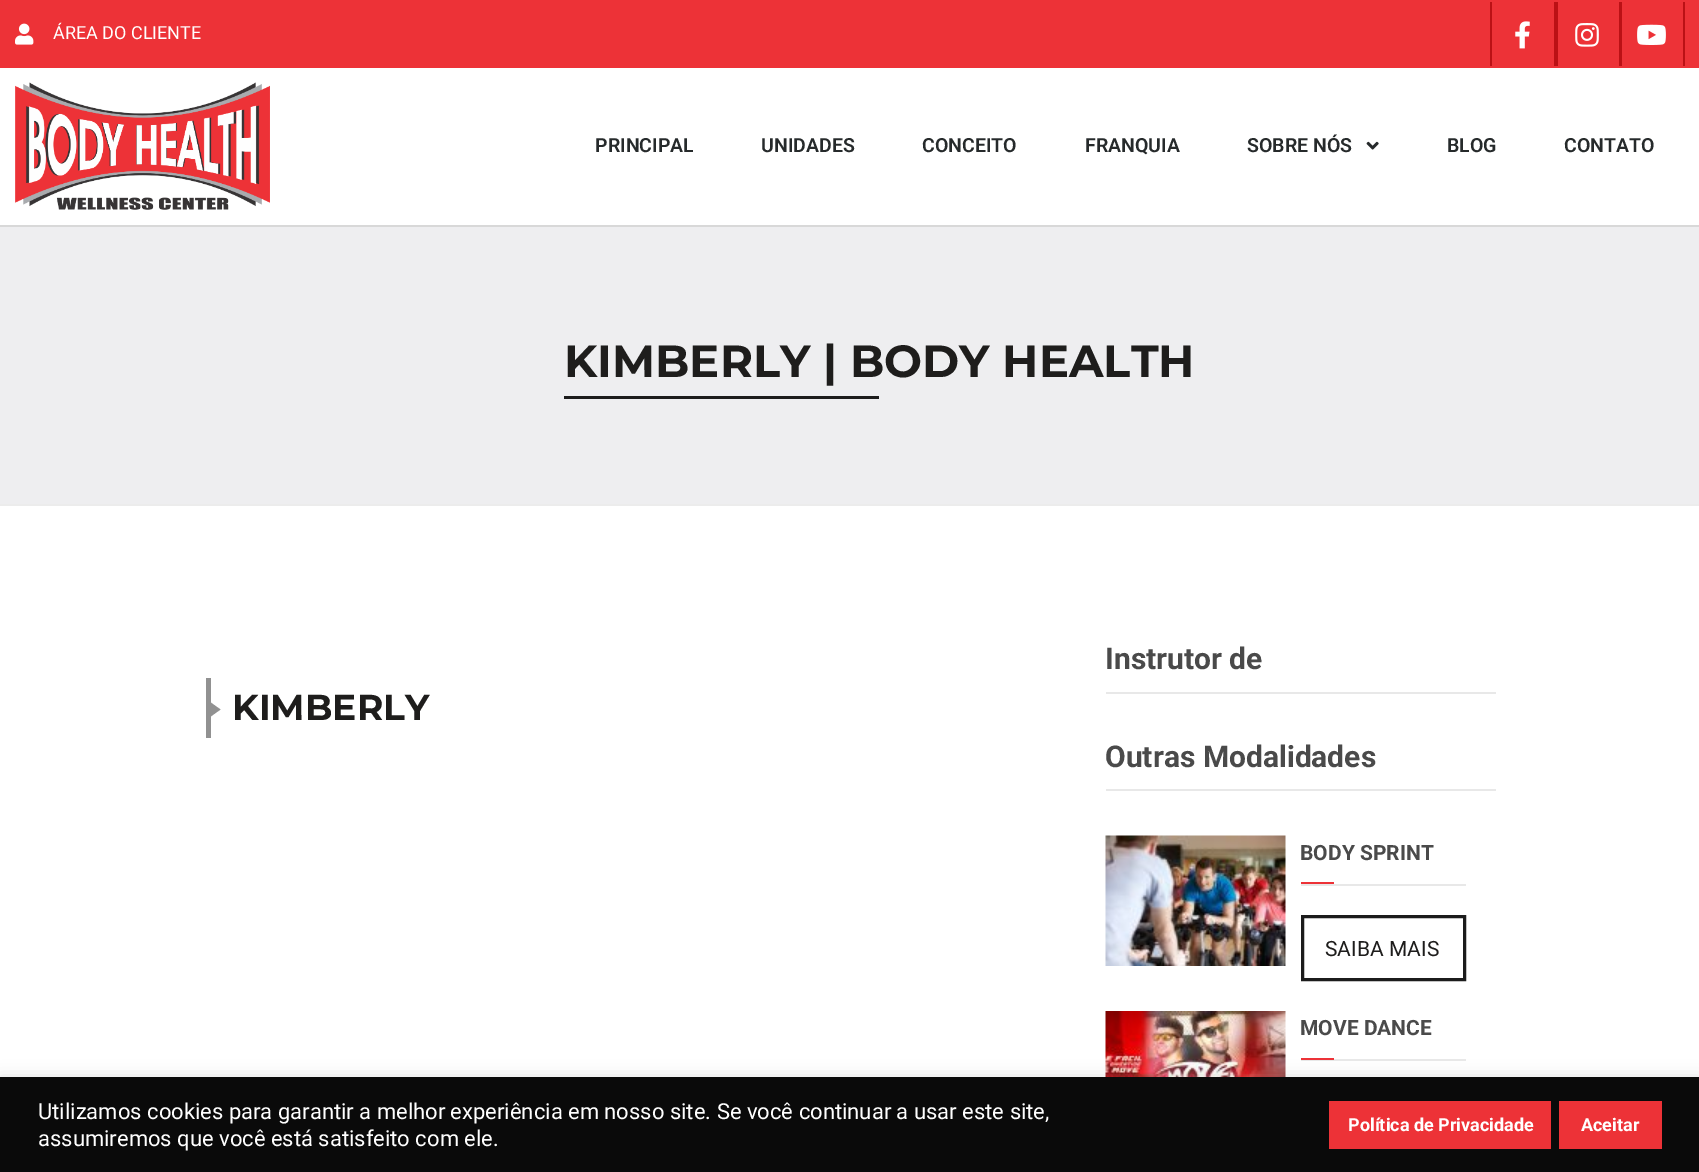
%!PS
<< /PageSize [1699 1172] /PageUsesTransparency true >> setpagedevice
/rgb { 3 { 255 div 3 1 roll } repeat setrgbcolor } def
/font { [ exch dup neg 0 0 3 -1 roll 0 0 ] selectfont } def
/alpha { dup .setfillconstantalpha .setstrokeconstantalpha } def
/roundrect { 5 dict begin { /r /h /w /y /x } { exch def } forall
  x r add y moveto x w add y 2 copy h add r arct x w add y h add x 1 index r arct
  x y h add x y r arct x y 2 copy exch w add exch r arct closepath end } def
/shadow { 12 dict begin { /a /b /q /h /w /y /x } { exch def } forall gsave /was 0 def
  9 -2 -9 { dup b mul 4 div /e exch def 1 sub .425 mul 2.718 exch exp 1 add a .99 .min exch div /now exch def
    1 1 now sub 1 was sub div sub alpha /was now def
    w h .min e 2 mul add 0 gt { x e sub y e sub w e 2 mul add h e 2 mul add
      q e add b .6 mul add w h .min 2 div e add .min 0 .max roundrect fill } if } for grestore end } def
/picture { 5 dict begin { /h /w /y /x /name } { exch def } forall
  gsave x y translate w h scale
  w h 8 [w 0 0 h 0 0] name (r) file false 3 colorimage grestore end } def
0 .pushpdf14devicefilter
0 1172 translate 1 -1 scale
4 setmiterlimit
255 255 255 rgb
0 0 1699 1172 rectfill
237 50 55 rgb
0 0 1699 68 rectfill
(img/1.rgb) 15 23 19 22 picture
187 17 21 rgb
1554 2 4 64 rectfill
1490 2 2 64 rectfill
(img/2.rgb) 1515 21 15 28 picture
1619 2 3 64 rectfill
(img/3.rgb) 1575 23 24 24 picture
1683 2 2 64 rectfill
(img/4.rgb) 1637 24 29 21 picture
216 216 216 rgb
0 225 1699 2 rectfill
(img/5.rgb) 15 82 255 128 picture
(img/6.rgb) 1366 141 13 9 picture
[
  [0 227 1699 277 238 238 240]
  [0 504 1699 2 236 236 236]
  [564 396 315 3 28 28 28]
  [206 678 5 60 145 145 145]
] { aload pop rgb rectfill } forall
210 717 moveto 210 702 lineto 220.5 709.5 lineto closepath fill
232 232 232 rgb
1106 692 390 2 rectfill
1106 789 390 2 rectfill
(img/7.rgb) 1105 835 181 131 picture
1301 884 165 2 rectfill
237 50 55 rgb
1301 882 33 2 rectfill
28 28 28 rgb
3 setlinewidth
1302.5 916.5 162 63 rectstroke
(img/8.rgb) 1105 1011 181 66 picture
232 232 232 rgb
1301 1059 165 2 rectfill
237 50 55 rgb
1301 1058 33 2 rectfill
172 171 171 rgb
0 1076 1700 96 0 7.5 0.3 shadow
[
  [0 1077 1699 95 10 10 10]
  [1329 1101 222 48 237 50 55]
  [1559 1101 103 48 237 50 55]
] { aload pop rgb rectfill } forall
/Roboto-Regular 18 font
255 255 255 rgb
53 39 moveto (ÁREA DO CLIENTE) show
/Roboto-SemiBold 19.5 font
38 42 43 rgb
[
  [(PRINCIPAL) 595 152]
  [(UNIDADES) 761 152]
  [(CONCEITO) 922 152]
  [(FRANQUIA) 1085 152]
  [(SOBRE NÓS) 1247 152]
  [(BLOG) 1447 152]
  [(CONTATO) 1564 152]
] { aload pop moveto show } forall
/Montserrat-Bold 45 font
30 29 28 rgb
564 377 moveto (KIMBERLY | BODY HEALTH) show
/Montserrat-Bold 36 font
232 720 moveto (KIMBERLY) show
/Roboto-Bold 30 font
74 74 74 rgb
1105 669 moveto (Instrutor de) show
1105 767 moveto (Outras Modalidades) show
/Roboto-Bold 21 font
1300 860 moveto (BODY SPRINT) show
/Roboto-Regular 21 font
30 29 28 rgb
1325 956 moveto (SAIBA MAIS) show
/Roboto-Bold 21 font
74 74 74 rgb
1300 1035 moveto (MOVE DANCE) show
/Roboto-Regular 22 font
255 255 255 rgb
38 1119 moveto (Utilizamos cookies para garantir a melhor experiência em nosso site. Se você continuar a usar este site,) show
38 1146 moveto (assumiremos que você está satisfeito com ele.) show
/Roboto-Bold 18 font
1348 1131 moveto (Política de Privacidade) show
1581 1131 moveto (Aceitar) show
.poppdf14devicefilter showpage
